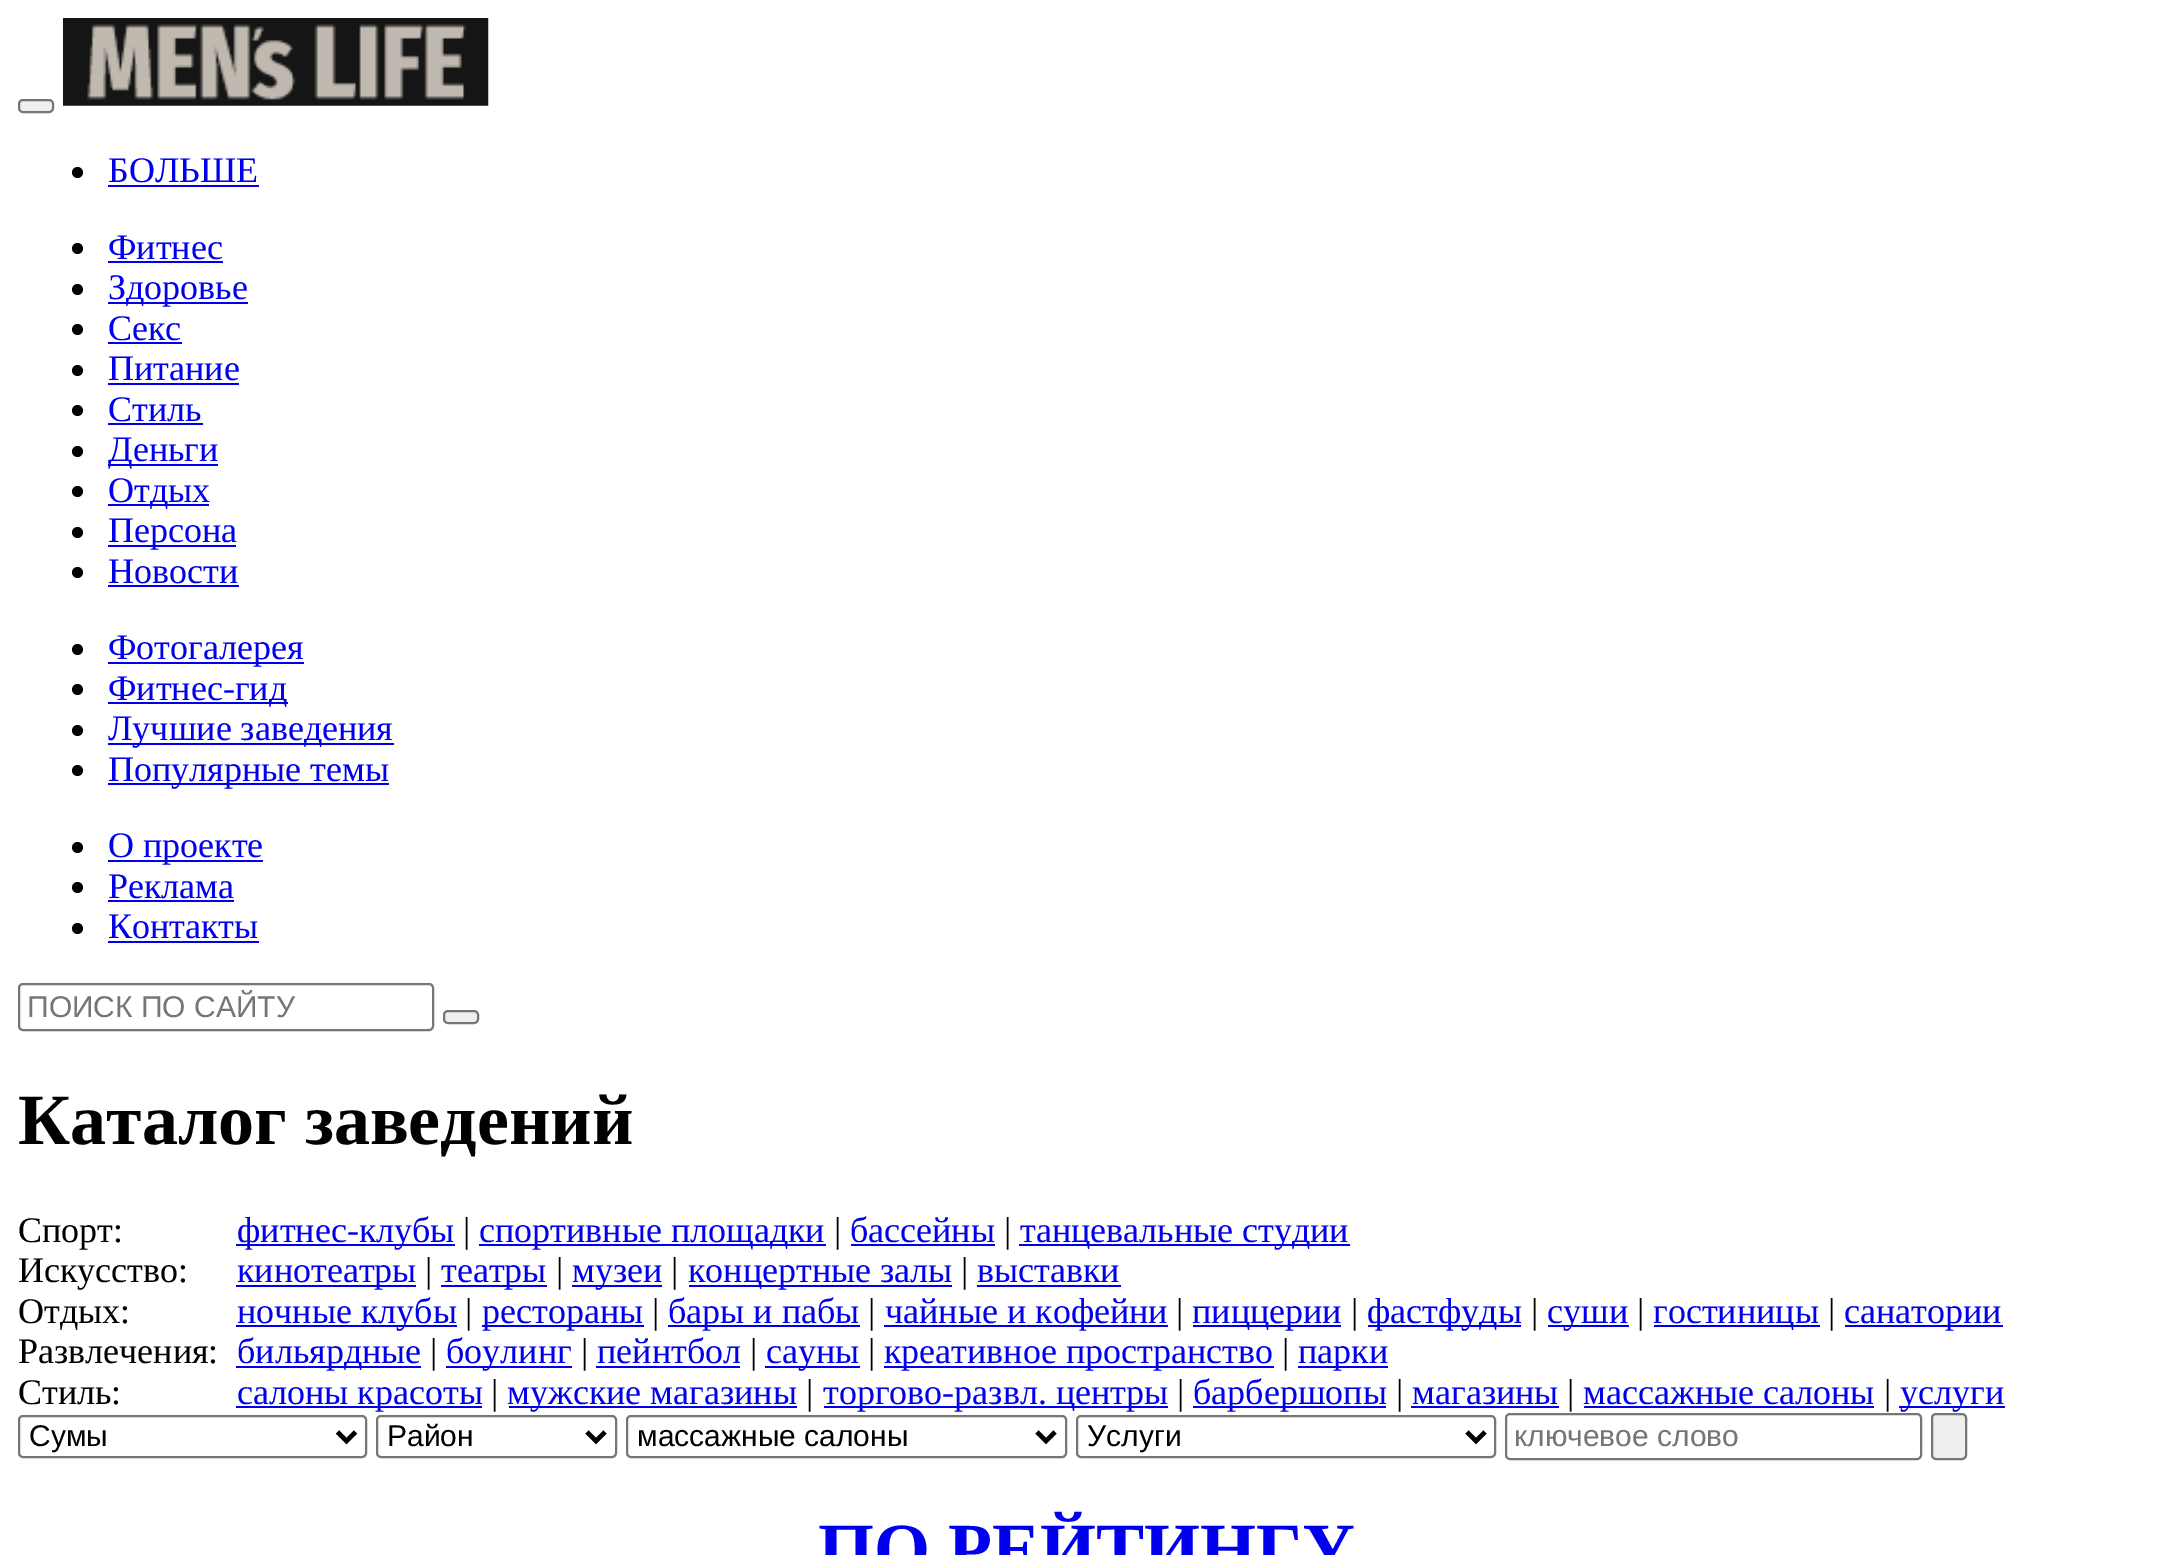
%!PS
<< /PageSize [2181 1555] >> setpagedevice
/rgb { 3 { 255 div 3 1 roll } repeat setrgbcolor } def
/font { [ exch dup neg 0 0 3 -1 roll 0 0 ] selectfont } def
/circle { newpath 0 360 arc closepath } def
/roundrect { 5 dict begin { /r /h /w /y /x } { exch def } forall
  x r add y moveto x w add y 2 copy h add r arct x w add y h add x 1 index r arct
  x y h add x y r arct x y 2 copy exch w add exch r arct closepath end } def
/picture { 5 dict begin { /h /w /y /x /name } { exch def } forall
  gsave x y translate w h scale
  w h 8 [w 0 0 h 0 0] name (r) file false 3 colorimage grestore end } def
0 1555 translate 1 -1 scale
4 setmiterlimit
255 255 255 rgb
0 0 2181 1555 rectfill
239 239 239 rgb
19 100 34 12 4 roundrect gsave fill grestore
118 118 118 rgb
2 setlinewidth
stroke
(img/1.rgb) 63 18 426 88 picture
0 0 0 rgb
77.5 172.5 5.5 circle fill
0 0 238 rgb
108 185 151 2 rectfill
0 0 0 rgb
77.5 248.5 5.5 circle fill
0 0 238 rgb
108 261 115 2 rectfill
0 0 0 rgb
77.5 289.5 5.5 circle fill
0 0 238 rgb
108 302 140 2 rectfill
0 0 0 rgb
77.5 329.5 5.5 circle fill
0 0 238 rgb
108 342 74 2 rectfill
0 0 0 rgb
77.5 370.5 5.5 circle fill
0 0 238 rgb
108 383 131 2 rectfill
0 0 0 rgb
77.5 410.5 5.5 circle fill
0 0 238 rgb
108 423 95 2 rectfill
0 0 0 rgb
77.5 451.5 5.5 circle fill
0 0 238 rgb
108 464 110 2 rectfill
0 0 0 rgb
77.5 491.5 5.5 circle fill
0 0 238 rgb
108 504 101 2 rectfill
0 0 0 rgb
77.5 532.5 5.5 circle fill
0 0 238 rgb
108 545 128 2 rectfill
0 0 0 rgb
77.5 572.5 5.5 circle fill
0 0 238 rgb
108 585 131 2 rectfill
0 0 0 rgb
77.5 649.5 5.5 circle fill
0 0 238 rgb
108 662 196 2 rectfill
0 0 0 rgb
77.5 689.5 5.5 circle fill
0 0 238 rgb
108 702 180 2 rectfill
0 0 0 rgb
77.5 730.5 5.5 circle fill
0 0 238 rgb
108 743 286 2 rectfill
0 0 0 rgb
77.5 770.5 5.5 circle fill
0 0 238 rgb
108 783 281 2 rectfill
0 0 0 rgb
77.5 847.5 5.5 circle fill
0 0 238 rgb
108 860 155 2 rectfill
0 0 0 rgb
77.5 887.5 5.5 circle fill
0 0 238 rgb
108 900 126 2 rectfill
0 0 0 rgb
77.5 928.5 5.5 circle fill
0 0 238 rgb
108 941 151 2 rectfill
118 118 118 rgb
19 984 414 46 4 roundrect stroke
239 239 239 rgb
444 1011 34 12 4 roundrect gsave fill grestore
118 118 118 rgb
stroke
[
  [236 1244 219 2 0 0 238]
  [479 1244 347 2 0 0 238]
  [851 1244 144 2 0 0 238]
  [1019 1244 331 2 0 0 238]
  [236 1285 180 2 0 0 238]
  [441 1285 106 2 0 0 238]
  [572 1285 90 2 0 0 238]
  [689 1285 263 2 0 0 238]
  [977 1285 144 2 0 0 238]
  [236 1325 221 2 0 0 238]
  [482 1325 162 2 0 0 238]
  [668 1325 192 2 0 0 238]
  [884 1325 284 2 0 0 238]
  [1193 1325 148 2 0 0 238]
  [1368 1325 153 2 0 0 238]
  [1548 1325 81 2 0 0 238]
  [1654 1325 166 2 0 0 238]
  [1845 1325 158 2 0 0 238]
  [236 1366 185 2 0 0 238]
  [446 1366 126 2 0 0 238]
  [596 1366 144 2 0 0 238]
  [765 1366 95 2 0 0 238]
  [884 1366 390 2 0 0 238]
  [1298 1366 90 2 0 0 238]
  [236 1406 246 2 0 0 238]
  [509 1406 288 2 0 0 238]
  [824 1406 344 2 0 0 238]
  [1193 1406 193 2 0 0 238]
  [1411 1406 148 2 0 0 238]
  [1584 1406 290 2 0 0 238]
  [1899 1406 106 2 0 0 238]
] { aload pop rgb rectfill } forall
118 118 118 rgb
19 1416 347 41 4 roundrect stroke
0 0 0 rgb
4.5 setlinewidth
337.5 1432 moveto 346.5 1441 lineto 355.5 1432 lineto stroke
118 118 118 rgb
2 setlinewidth
377 1416 239 41 4 roundrect stroke
0 0 0 rgb
4.5 setlinewidth
587 1432 moveto 596 1441 lineto 605 1432 lineto stroke
118 118 118 rgb
2 setlinewidth
627 1416 439 41 4 roundrect stroke
0 0 0 rgb
4.5 setlinewidth
1037 1432 moveto 1046 1441 lineto 1055 1432 lineto stroke
118 118 118 rgb
2 setlinewidth
1077 1416 418 41 4 roundrect stroke
0 0 0 rgb
4.5 setlinewidth
1467 1432 moveto 1476 1441 lineto 1485 1432 lineto stroke
118 118 118 rgb
2 setlinewidth
1506 1414 415 45 4 roundrect stroke
239 239 239 rgb
1932 1414 34 45 4 roundrect gsave fill grestore
118 118 118 rgb
stroke
/LiberationSerif-Regular 36 font
0 0 238 rgb
[
  [(БОЛЬШЕ) 108 182]
  [(Фитнес) 108 259]
  [(Здоровье) 108 299]
  [(Секс) 108 340]
  [(Питание) 108 380]
  [(Стиль) 108 421]
  [(Деньги) 108 461]
  [(Отдых) 108 502]
  [(Персона) 108 542]
  [(Новости) 108 583]
  [(Фотогалерея) 108 659]
  [(Фитнес-гид) 108 700]
  [(Лучшие заведения) 108 740]
  [(Популярные темы) 108 781]
  [(О проекте) 108 857]
  [(Реклама) 108 898]
  [(Контакты) 108 938]
] { aload pop moveto show } forall
gsave
27 990 398 34 rectclip
/LiberationSans-Regular 30 font
117 117 117 rgb
27 1017 moveto (ПОИСК ПО САЙТУ) show
grestore
/LiberationSerif-Bold 72 font
0 0 0 rgb
18 1144 moveto (Каталог заведений) show
/LiberationSerif-Regular 36 font
18 1242 moveto (Спорт:) show
0 0 238 rgb
237 1242 moveto (фитнес-клубы) show
0 0 0 rgb
463 1242 moveto (|) show
0 0 238 rgb
479 1242 moveto (спортивные площадки) show
0 0 0 rgb
834 1242 moveto (|) show
0 0 238 rgb
850 1242 moveto (бассейны) show
0 0 0 rgb
1004 1242 moveto (|) show
0 0 238 rgb
1020 1242 moveto (танцевальные студии) show
0 0 0 rgb
18 1282 moveto (Искусство:) show
0 0 238 rgb
237 1282 moveto (кинотеатры) show
0 0 0 rgb
425 1282 moveto (|) show
0 0 238 rgb
441 1282 moveto (театры) show
0 0 0 rgb
556 1282 moveto (|) show
0 0 238 rgb
572 1282 moveto (музеи) show
0 0 0 rgb
671 1282 moveto (|) show
0 0 238 rgb
688 1282 moveto (концертные залы) show
0 0 0 rgb
961 1282 moveto (|) show
0 0 238 rgb
977 1282 moveto (выставки) show
0 0 0 rgb
18 1323 moveto (Отдых:) show
0 0 238 rgb
237 1323 moveto (ночные клубы) show
0 0 0 rgb
465 1323 moveto (|) show
0 0 238 rgb
482 1323 moveto (рестораны) show
0 0 0 rgb
652 1323 moveto (|) show
0 0 238 rgb
668 1323 moveto (бары и пабы) show
0 0 0 rgb
868 1323 moveto (|) show
0 0 238 rgb
885 1323 moveto (чайные и кофейни) show
0 0 0 rgb
1176 1323 moveto (|) show
0 0 238 rgb
1192 1323 moveto (пиццерии) show
0 0 0 rgb
1351 1323 moveto (|) show
0 0 238 rgb
1367 1323 moveto (фастфуды) show
0 0 0 rgb
1531 1323 moveto (|) show
0 0 238 rgb
1547 1323 moveto (суши) show
0 0 0 rgb
1637 1323 moveto (|) show
0 0 238 rgb
1653 1323 moveto (гостиницы) show
0 0 0 rgb
1828 1323 moveto (|) show
0 0 238 rgb
1844 1323 moveto (санатории) show
0 0 0 rgb
18 1363 moveto (Развлечения:) show
0 0 238 rgb
237 1363 moveto (бильярдные) show
0 0 0 rgb
430 1363 moveto (|) show
0 0 238 rgb
446 1363 moveto (боулинг) show
0 0 0 rgb
581 1363 moveto (|) show
0 0 238 rgb
597 1363 moveto (пейнтбол) show
0 0 0 rgb
750 1363 moveto (|) show
0 0 238 rgb
766 1363 moveto (сауны) show
0 0 0 rgb
868 1363 moveto (|) show
0 0 238 rgb
884 1363 moveto (креативное пространство) show
0 0 0 rgb
1282 1363 moveto (|) show
0 0 238 rgb
1298 1363 moveto (парки) show
0 0 0 rgb
18 1404 moveto (Стиль:) show
0 0 238 rgb
237 1404 moveto (салоны красоты) show
0 0 0 rgb
491 1404 moveto (|) show
0 0 238 rgb
507 1404 moveto (мужские магазины) show
0 0 0 rgb
806 1404 moveto (|) show
0 0 238 rgb
823 1404 moveto (торгово-развл. центры) show
0 0 0 rgb
1177 1404 moveto (|) show
0 0 238 rgb
1193 1404 moveto (барбершопы) show
0 0 0 rgb
1396 1404 moveto (|) show
0 0 238 rgb
1412 1404 moveto (магазины) show
0 0 0 rgb
1567 1404 moveto (|) show
0 0 238 rgb
1583 1404 moveto (массажные салоны) show
0 0 0 rgb
1884 1404 moveto (|) show
0 0 238 rgb
1900 1404 moveto (услуги) show
/LiberationSans-Regular 30 font
0 0 0 rgb
[
  [(Сумы) 29 1446]
  [(Район) 387 1446]
  [(массажные салоны) 637 1446]
  [(Услуги) 1087 1446]
] { aload pop moveto show } forall
117 117 117 rgb
1514 1446 moveto (ключевое слово) show
/LiberationSerif-Bold 72 font
0 0 238 rgb
818 1573 moveto (ПО РЕЙТИНГУ) show
showpage
